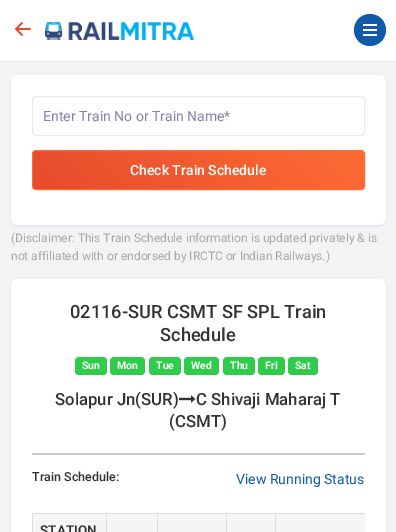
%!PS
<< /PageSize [396 532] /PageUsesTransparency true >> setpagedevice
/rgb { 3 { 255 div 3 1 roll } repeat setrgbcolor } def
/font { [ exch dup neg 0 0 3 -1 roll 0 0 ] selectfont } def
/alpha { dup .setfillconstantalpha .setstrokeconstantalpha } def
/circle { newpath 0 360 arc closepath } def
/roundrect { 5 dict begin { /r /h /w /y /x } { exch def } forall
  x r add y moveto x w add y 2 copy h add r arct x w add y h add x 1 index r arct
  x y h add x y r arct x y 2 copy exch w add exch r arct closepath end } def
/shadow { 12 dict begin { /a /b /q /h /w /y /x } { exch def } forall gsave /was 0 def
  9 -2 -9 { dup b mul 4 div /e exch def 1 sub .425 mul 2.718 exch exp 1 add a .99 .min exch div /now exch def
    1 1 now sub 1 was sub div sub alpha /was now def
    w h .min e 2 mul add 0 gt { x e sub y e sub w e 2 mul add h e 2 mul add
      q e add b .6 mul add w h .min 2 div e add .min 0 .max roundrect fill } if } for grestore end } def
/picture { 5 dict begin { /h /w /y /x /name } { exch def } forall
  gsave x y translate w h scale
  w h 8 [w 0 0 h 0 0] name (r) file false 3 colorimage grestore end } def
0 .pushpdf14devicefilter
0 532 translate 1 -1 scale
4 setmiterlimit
243 243 243 rgb
0 0 396 532 rectfill
255 255 255 rgb
0 0 396 61 rectfill
235 235 235 rgb
0 61 396 1 rectfill
(img/1.rgb) 15 22 16 14 picture
(img/2.rgb) 45 22 150 18 picture
17 89 169 rgb
370 30 16 circle fill
[
  [363 24 14 2 255 255 255]
  [363 29 14 2 255 255 255]
  [363 34 14 2 255 255 255]
] { aload pop rgb rectfill } forall
215 222 244 rgb
11 76 375 150 7 1 1 shadow
255 255 255 rgb
11 75 375 150 7 roundrect fill
235 235 235 rgb
32.5 96.5 332 39 3.5 roundrect stroke
gsave
32 150 333 40 4 roundrect clip newpath
gsave 33 151 moveto 364 151 lineto 364 189 lineto 33 189 lineto closepath clip newpath
<< /ShadingType 2 /ColorSpace /DeviceRGB /Coords [106 262 291 78] /Extend [true true] /Function << /FunctionType 2 /Domain [0 1] /C0 [0.902 0.294 0.176] /C1 [0.992 0.424 0.204] /N 1 >> >> shfill grestore
grestore
253 108 52 rgb
32.5 150.5 332 39 3.5 roundrect stroke
215 222 244 rgb
11 280 375 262 7 1 1 shadow
255 255 255 rgb
11 279 375 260 7 roundrect fill
46 204 74 rgb
75 357 32 18 4 roundrect fill
110 357 35 18 4 roundrect fill
149 357 32 18 4 roundrect fill
184 357 35 18 4 roundrect fill
223 357 32 18 4 roundrect fill
258 357 27 18 4 roundrect fill
288 357 30 18 4 roundrect fill
(img/3.rgb) 179 395 17 8 picture
[
  [32 453 333 2 204 204 204]
  [32 513 333 1 221 221 221]
  [32 513 1 19 221 221 221]
  [33 514 73 18 245 245 245]
  [107 514 50 18 245 245 245]
  [106 513 1 19 221 221 221]
  [158 514 68 18 245 245 245]
  [157 513 1 19 221 221 221]
  [227 514 48 18 245 245 245]
  [226 513 1 19 221 221 221]
  [276 514 89 18 245 245 245]
  [275 513 1 19 221 221 221]
] { aload pop rgb rectfill } forall
/Roboto-Regular 14 font
132 128 174 rgb
43 121 moveto (Enter Train No or Train Name*) show
/Roboto-Medium 14 font
255 255 255 rgb
130 175 moveto (Check Train Schedule) show
/Roboto-Regular 12 font
167 167 167 rgb
11 242 moveto (\(Disclaimer: This Train Schedule information is updated privately & is) show
11 260 moveto (not affiliated with or endorsed by IRCTC or Indian Railways.\)) show
/Roboto-Medium 18.25 font
51 51 51 rgb
70 318 moveto (02116-SUR CSMT SF SPL Train) show
160 341 moveto (Schedule) show
/Roboto-Bold 10.5 font
255 255 255 rgb
[
  [(Sun) 82 369]
  [(Mon) 117 369]
  [(Tue) 156 369]
  [(Wed) 191 369]
  [(Thu) 230 369]
  [(Fri) 265 369]
  [(Sat) 295 369]
] { aload pop moveto show } forall
/Roboto-Medium 16.75 font
51 51 51 rgb
[
  [(Solapur Jn\(SUR\)) 55 405]
  [(C Shivaji Maharaj T) 196 405]
  [(\(CSMT\)) 169 427]
] { aload pop moveto show } forall
/Roboto-Medium 12.5 font
32 481 moveto (Train Schedule:) show
/Roboto-Regular 14 font
17 89 169 rgb
236 484 moveto (View Running Status) show
/Roboto-SemiBold 13.5 font
51 51 51 rgb
40 535 moveto (STATION) show
.poppdf14devicefilter showpage
